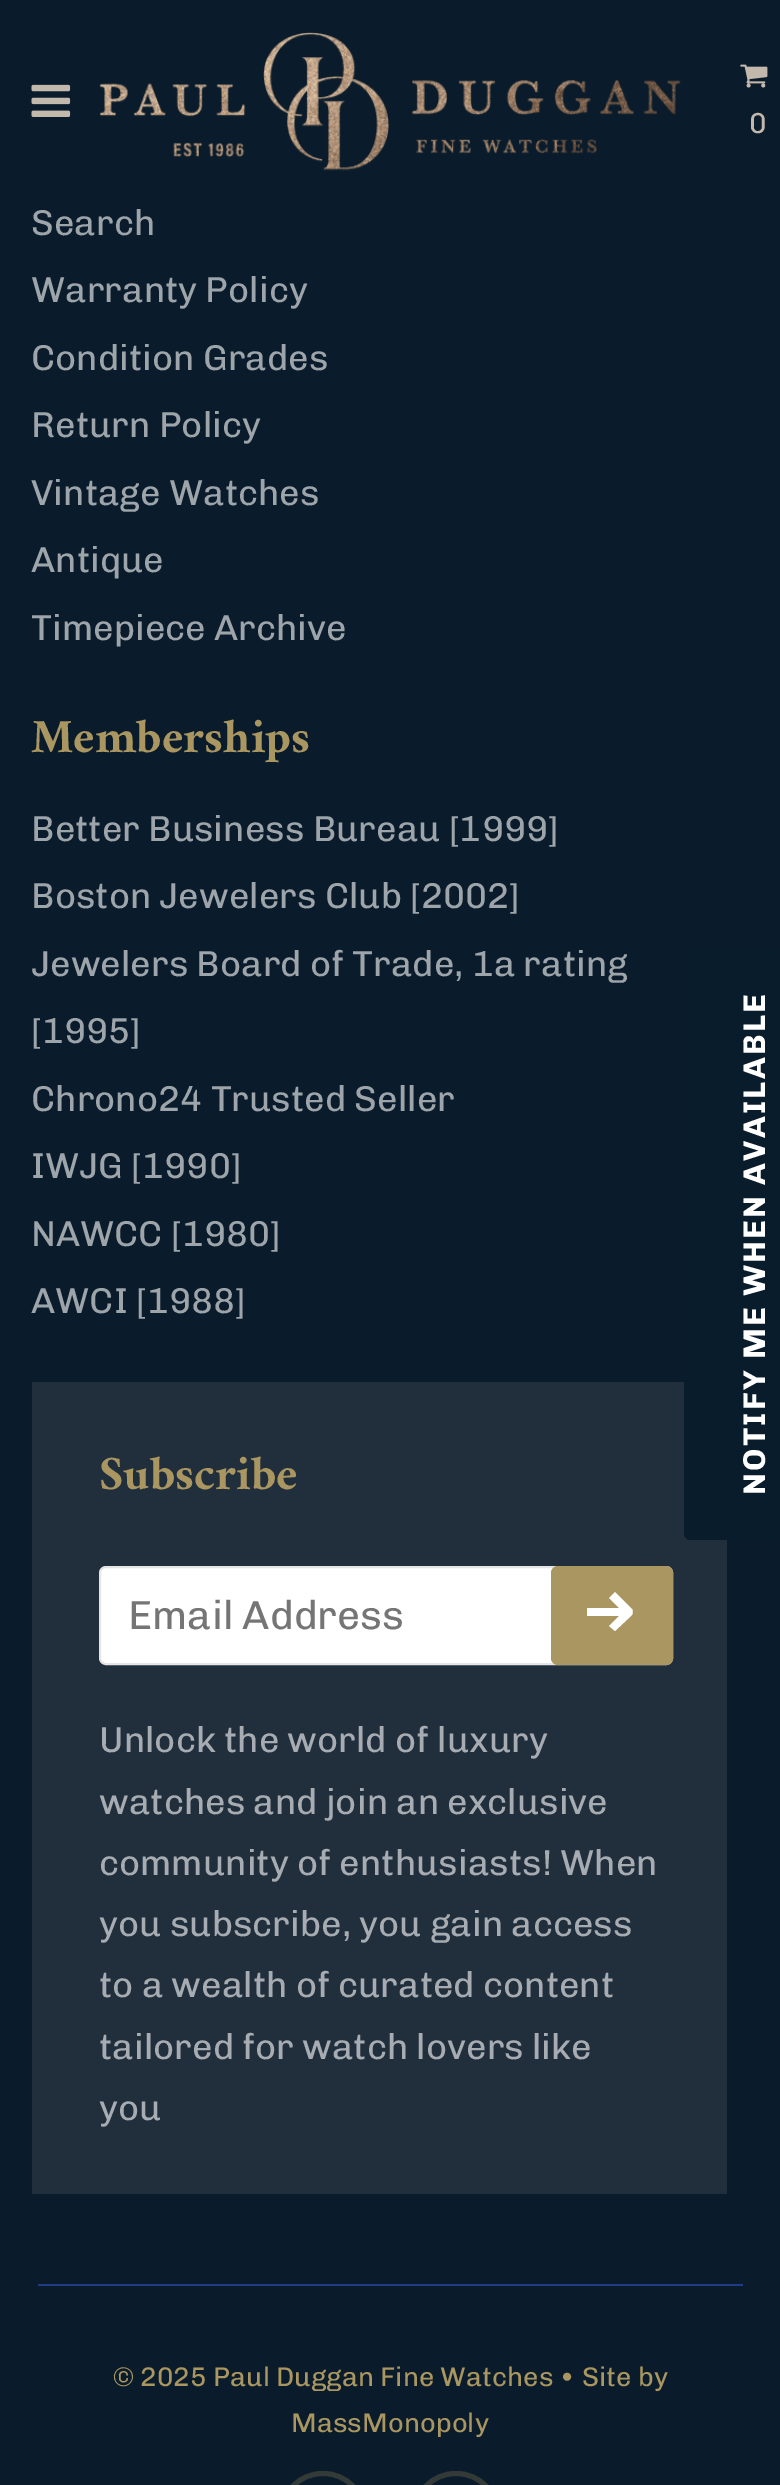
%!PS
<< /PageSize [780 2485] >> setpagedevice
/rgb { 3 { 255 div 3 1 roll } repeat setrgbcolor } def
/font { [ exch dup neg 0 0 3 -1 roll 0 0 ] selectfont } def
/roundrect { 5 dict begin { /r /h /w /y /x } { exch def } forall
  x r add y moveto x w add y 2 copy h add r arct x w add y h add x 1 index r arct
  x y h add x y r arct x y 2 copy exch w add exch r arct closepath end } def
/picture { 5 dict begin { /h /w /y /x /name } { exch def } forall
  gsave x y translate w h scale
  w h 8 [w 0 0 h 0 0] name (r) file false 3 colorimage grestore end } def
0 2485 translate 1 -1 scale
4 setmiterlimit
10 28 43 rgb
0 0 780 2485 rectfill
(img/1.rgb) 31 84 40 33 picture
(img/2.rgb) 99 32 582 139 picture
(img/3.rgb) 740 64 28 24 picture
33 47 61 rgb
32 1382 695 812 rectfill
255 255 255 rgb
100 1567 572 97 6 roundrect gsave fill grestore
229 229 229 rgb
2 setlinewidth
stroke
170 150 96 rgb
551 1566 122 99 7 roundrect fill
255 255 255 rgb
615 1631 moveto 632 1615 lineto 633 1613 633 1610 632 1609 curveto 615 1592 lineto 609 1598 lineto 619 1608 lineto 587 1608 lineto 587 1616 lineto 619 1616 lineto 609 1626 lineto closepath eofill
32 60 134 rgb
38 2284 705 2 rectfill
51 58 56 rgb
5 setlinewidth
281.5 2473.5 83 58 41 roundrect stroke
414.5 2473.5 83 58 41 roundrect stroke
9 28 43 rgb
684 1533 moveto 684 953 lineto 684 950 687 947 690 947 curveto 776 947 lineto 780 947 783 950 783 953 curveto 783 1533 lineto 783 1537 780 1540 776 1540 curveto 690 1540 lineto 687 1540 684 1537 684 1533 curveto closepath fill
/Chivo-Regular 29 font
194 184 172 rgb
749 133 moveto (0) show
/Chivo-Regular 36 font
157 164 170 rgb
[
  [(Search) 31 235]
  [(Warranty Policy) 31 302]
  [(Condition Grades) 31 370]
  [(Return Policy) 31 437]
  [(Vintage Watches) 31 505]
  [(Antique) 31 572]
  [(Timepiece Archive) 31 640]
] { aload pop moveto show } forall
/Amiri-Bold 48 font
170 150 96 rgb
31 752 moveto (Memberships) show
/Chivo-Regular 36 font
157 164 170 rgb
[
  [(Better Business Bureau [1999]) 31 841]
  [(Boston Jewelers Club [2002]) 31 908]
  [(Jewelers Board of Trade, 1a rating) 31 976]
  [([1995]) 31 1043]
  [(Chrono24 Trusted Seller) 31 1111]
  [(IWJG [1990]) 31 1178]
  [(NAWCC [1980]) 31 1246]
  [(AWCI [1988]) 31 1313]
] { aload pop moveto show } forall
/Amiri-Bold 48 font
170 150 96 rgb
99 1489 moveto (Subscribe) show
/Chivo-Regular 40.5 font
117 117 117 rgb
128 1629 moveto (Email Address) show
/Chivo-Regular 36 font
166 172 177 rgb
[
  [(Unlock the world of luxury) 99 1752]
  [(watches and join an exclusive) 99 1814]
  [(community of enthusiasts! When) 99 1875]
  [(you subscribe, you gain access) 99 1936]
  [(to a wealth of curated content) 99 1997]
  [(tailored for watch lovers like) 99 2059]
  [(you) 99 2120]
] { aload pop moveto show } forall
/Chivo-Regular 27 font
170 150 96 rgb
113 2386 moveto (© 2025 Paul Duggan Fine Watches • Site by) show
291 2432 moveto (MassMonopoly) show
/Chivo-Bold 31.5 font
255 255 255 rgb
gsave 765 1495 translate -90 rotate 0 0 moveto 2.25 0 (NOTIFY ME WHEN AVAILABLE) ashow grestore
showpage
